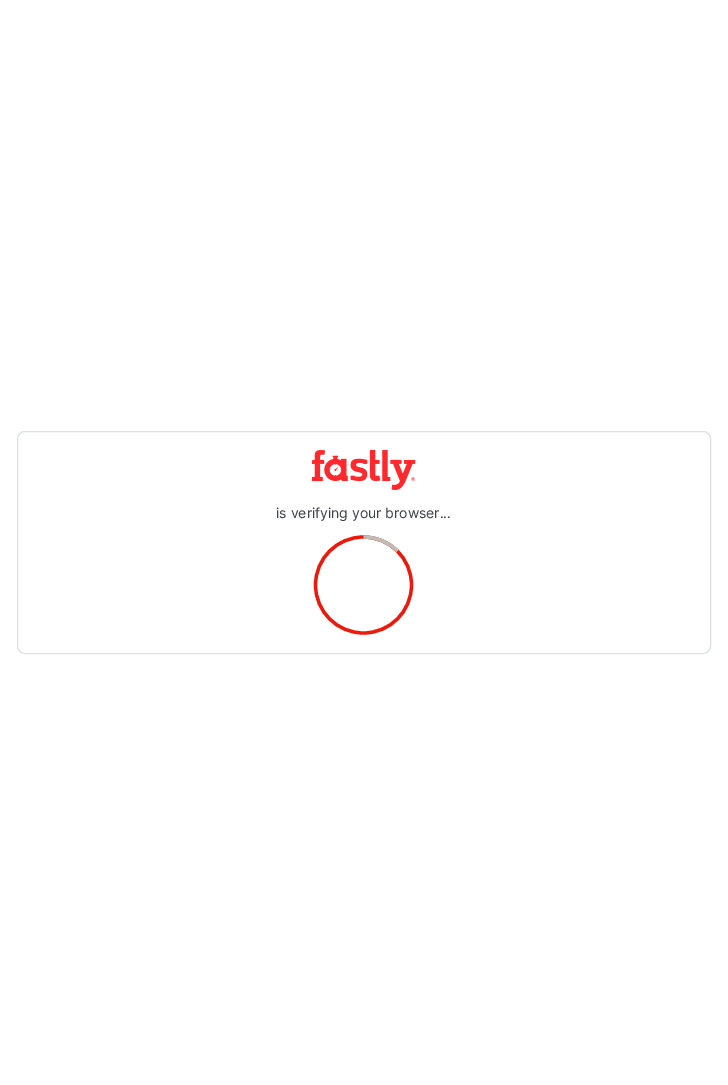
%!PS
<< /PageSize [728 1085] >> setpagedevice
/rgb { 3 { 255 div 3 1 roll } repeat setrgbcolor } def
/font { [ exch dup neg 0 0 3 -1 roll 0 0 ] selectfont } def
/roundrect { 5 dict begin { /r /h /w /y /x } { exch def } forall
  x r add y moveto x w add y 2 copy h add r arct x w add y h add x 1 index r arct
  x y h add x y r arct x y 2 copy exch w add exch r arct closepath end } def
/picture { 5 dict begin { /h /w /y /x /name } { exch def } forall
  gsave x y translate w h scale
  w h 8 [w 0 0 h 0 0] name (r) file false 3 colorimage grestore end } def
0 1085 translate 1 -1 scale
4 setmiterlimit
255 255 255 rgb
0 0 728 1085 rectfill
220 224 228 rgb
17.5 431.5 693 222 7.5 roundrect stroke
(img/1.rgb) 311 450 105 40 picture
235 26 12 rgb
3.3 setlinewidth
315.5 585 moveto 315.5 558.5 337 537 363.5 537 curveto 390 537 411.5 558.5 411.5 585 curveto 411.5 611.5 390 633 363.5 633 curveto 337 633 315.5 611.5 315.5 585 curveto closepath stroke
194 186 181 rgb
397.5 551 moveto 388.5 542 376.5 537 363.5 537 curveto stroke
/Inter-Regular 14 font
58 66 74 rgb
276 518 moveto (is verifying your browser...) show
showpage
